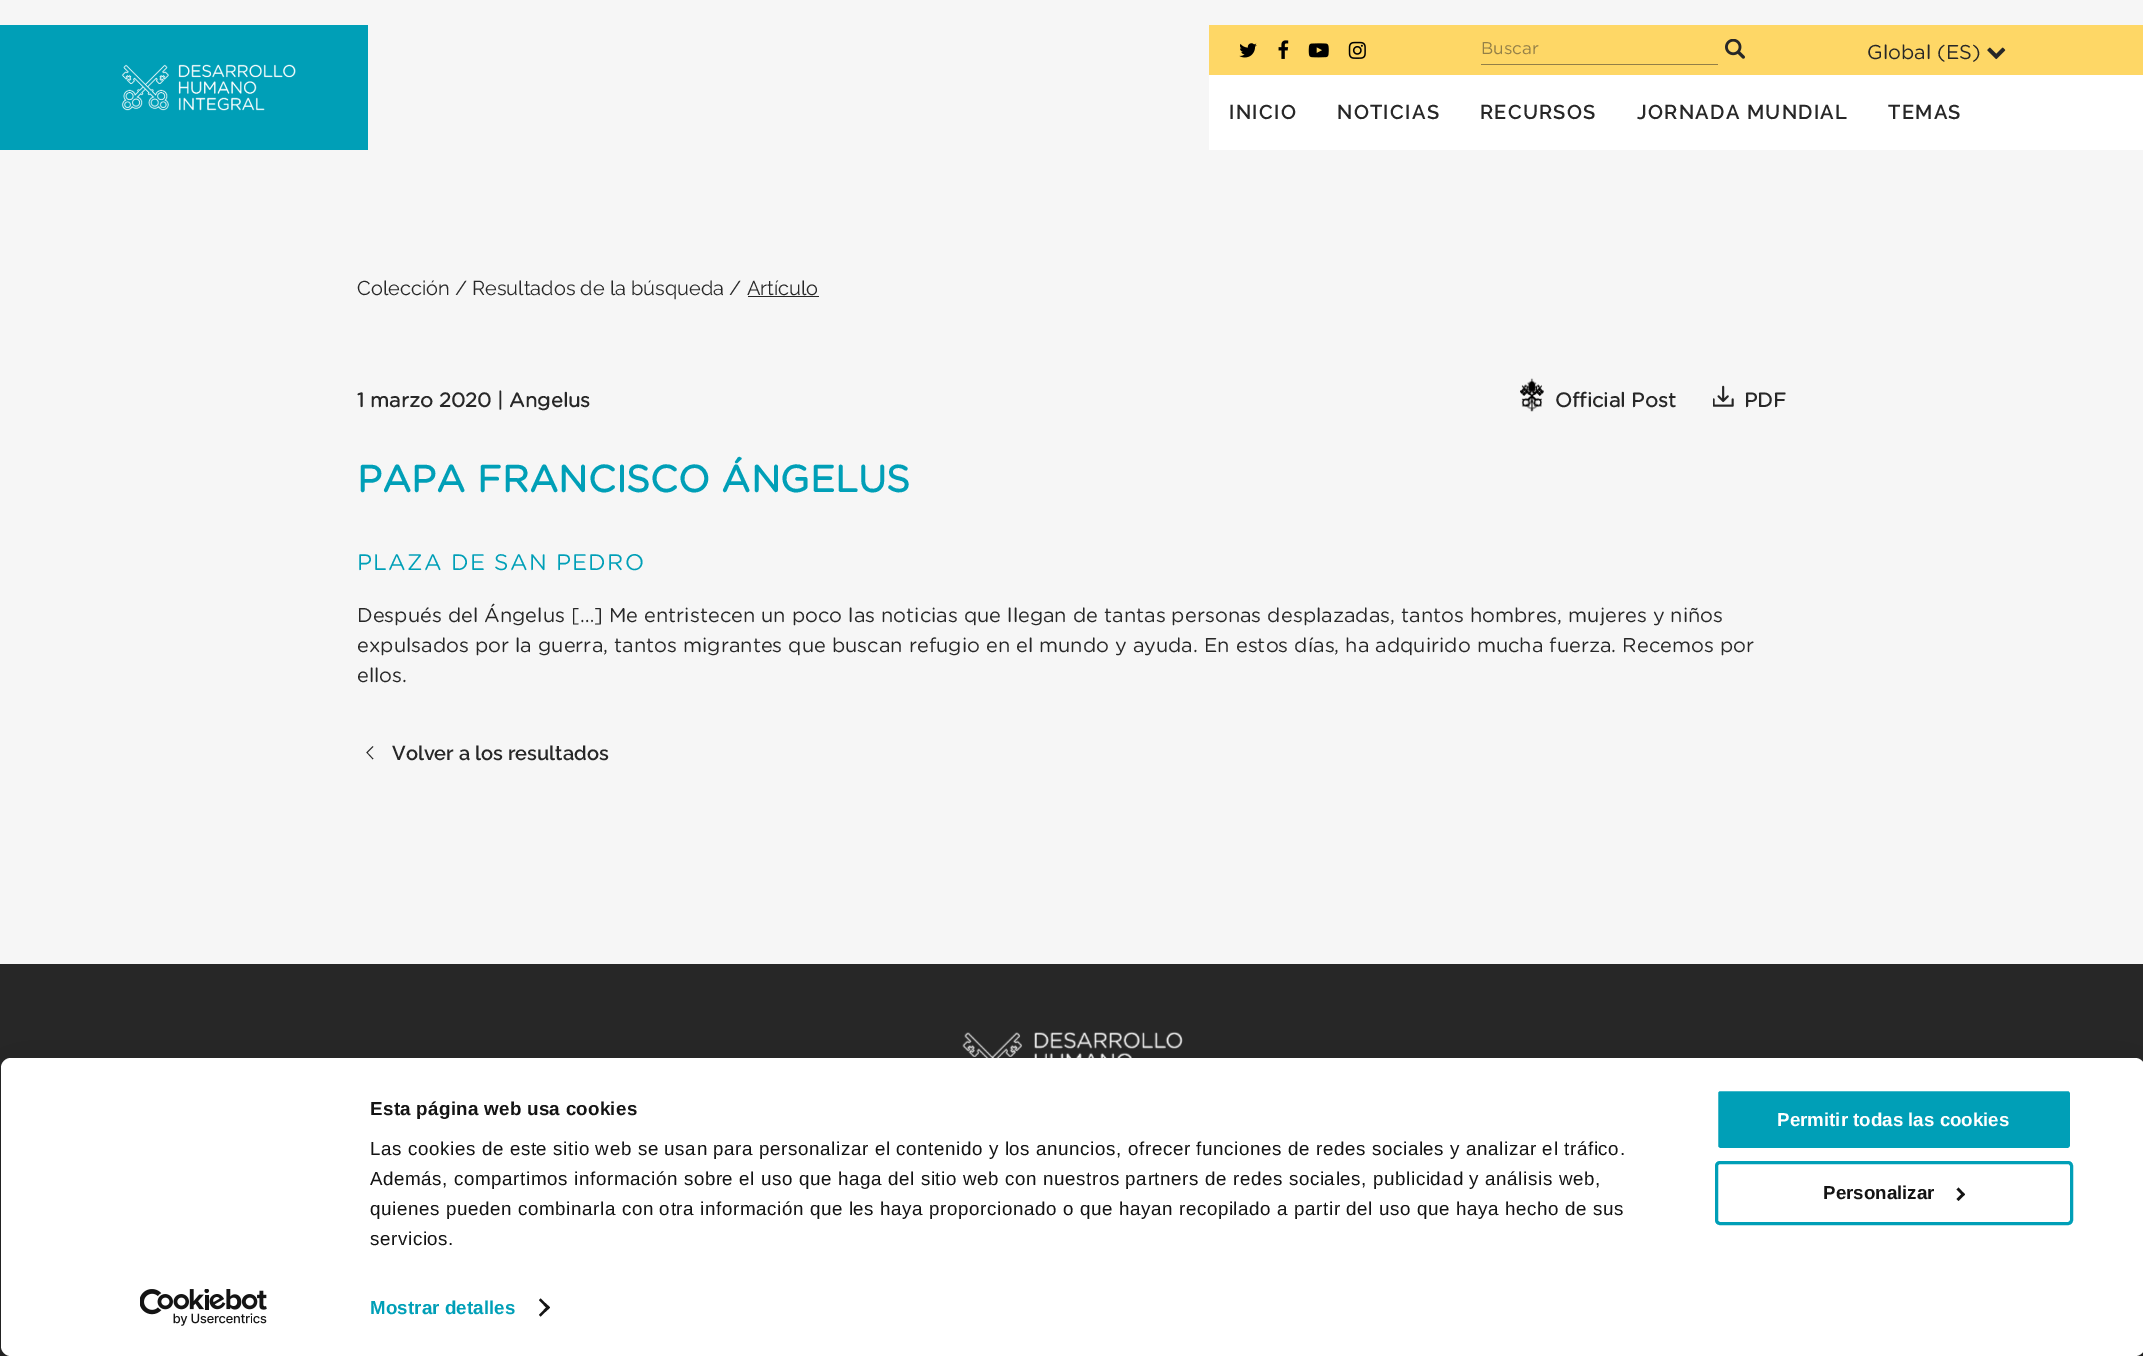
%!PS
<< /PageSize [2143 1356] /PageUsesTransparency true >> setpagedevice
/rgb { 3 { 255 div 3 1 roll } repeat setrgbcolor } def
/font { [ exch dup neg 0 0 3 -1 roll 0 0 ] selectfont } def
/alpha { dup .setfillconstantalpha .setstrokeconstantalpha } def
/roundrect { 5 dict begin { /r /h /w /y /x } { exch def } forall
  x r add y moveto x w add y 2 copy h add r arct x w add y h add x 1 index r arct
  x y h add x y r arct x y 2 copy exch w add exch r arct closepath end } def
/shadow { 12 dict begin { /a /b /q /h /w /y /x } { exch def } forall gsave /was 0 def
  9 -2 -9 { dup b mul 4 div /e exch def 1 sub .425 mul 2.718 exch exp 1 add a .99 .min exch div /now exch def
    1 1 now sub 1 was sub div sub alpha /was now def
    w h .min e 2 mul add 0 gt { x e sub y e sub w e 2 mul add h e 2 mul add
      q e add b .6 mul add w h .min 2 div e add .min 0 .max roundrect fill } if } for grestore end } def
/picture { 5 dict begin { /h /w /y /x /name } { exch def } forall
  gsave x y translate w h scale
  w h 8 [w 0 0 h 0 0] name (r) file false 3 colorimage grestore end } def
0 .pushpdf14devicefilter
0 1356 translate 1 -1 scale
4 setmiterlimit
246 246 246 rgb
0 0 2143 1356 rectfill
0 159 183 rgb
0 25 368 125 rectfill
(img/1.rgb) 121 64 175 47 picture
255 255 255 rgb
1209 75 934 75 rectfill
254 215 102 rgb
1209 25 934 50 rectfill
(img/2.rgb) 1239 43 18 15 picture
(img/3.rgb) 1278 40 11 19 picture
(img/4.rgb) 1308 43 21 15 picture
(img/5.rgb) 1348 41 18 18 picture
147 127 71 rgb
1481 64 237 1 rectfill
(img/6.rgb) 1725 39 20 20 picture
(img/7.rgb) 1987 47 19 13 picture
39 39 39 rgb
748 296 71 1 rectfill
(img/8.rgb) 1520 378 24 34 picture
(img/9.rgb) 1713 385 21 22 picture
0.8 setlinewidth
373 746.5 moveto 367 752.5 lineto 373 759 lineto stroke
0 964 2143 392 rectfill
(img/10.rgb) 962 1031 221 27 picture
0 0 0 rgb
1 1095 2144 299 10 44 0.3 shadow
255 255 255 rgb
1 1058 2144 298 10 roundrect fill
20 20 20 rgb
540.5 1298.5 moveto 550 1307.5 lineto 548 1309.5 lineto 539 1300 lineto closepath fill
548 1305.5 moveto 550 1307.5 lineto 540.5 1316.5 lineto 539 1315 lineto closepath fill
0 159 183 rgb
1716.5 1089.5 355 60 3.5 roundrect gsave fill grestore
255 255 255 rgb
3 setlinewidth
stroke
0 159 183 rgb
1716.5 1162.5 355 61 3.5 roundrect stroke
20 20 20 rgb
1958.5 1187.5 moveto 1965 1194.5 lineto 1963 1196 lineto 1956.5 1189.5 lineto closepath fill
1963 1192.5 moveto 1965 1194.5 lineto 1958.5 1201 lineto 1956.5 1199 lineto closepath fill
(img/11.rgb) 140 1289 127 37 picture
/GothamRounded-Regular 17 font
147 127 71 rgb
1481 54 moveto (Buscar) show
/GothamRounded-Regular 20 font
39 39 39 rgb
1867 59 moveto (Global \(ES\)) show
/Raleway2-Thin 20 font
1229 119 moveto 1.25 0 (INICIO) ashow
1337 119 moveto 1.25 0 (NOTICIAS) ashow
1480 119 moveto 1.25 0 (RECURSOS) ashow
1637 119 moveto 1.25 0 (JORNADA MUNDIAL) ashow
1888 119 moveto 1.25 0 (TEMAS) ashow
/Raleway-Thin 20 font
357 295 moveto (Colección / Resultados de la búsqueda / Artículo) show
/GothamRounded-Bold 20 font
[
  [(1 marzo 2020 | Angelus) 357 407]
  [(Official Post) 1555 407]
  [(PDF) 1744 407]
] { aload pop moveto show } forall
/GothamRounded-Bold 37.5 font
0 159 183 rgb
357 492 moveto (PAPA FRANCISCO ÁNGELUS) show
/GothamRounded-Regular 22.5 font
357 570 moveto 1.25 0 (PLAZA DE SAN PEDRO) ashow
/GothamRounded-Regular 20 font
39 39 39 rgb
[
  [(Después del Ángelus […] Me entristecen un poco las noticias que llegan de tantas personas desplazadas, tantos hombres, mujeres y niños) 357 622]
  [(expulsados por la guerra, tantos migrantes que buscan refugio en el mundo y ayuda. En estos días, ha adquirido mucha fuerza. Recemos por) 357 652]
  [(ellos.) 357 682]
] { aload pop moveto show } forall
/Raleway2-Thin 20 font
392 760 moveto (Volver a los resultados) show
/LiberationSans-Bold 18.75 font
20 20 20 rgb
370 1115 moveto 0.3 0 (Esta página web usa cookies) ashow
/LiberationSans-Regular 18.75 font
370 1155 moveto 0.62 0 (Las cookies de este sitio web se usan para personalizar el contenido y los anuncios, ofrecer funciones de redes sociales y analizar el tráfico.) ashow
370 1185 moveto 0.62 0 (Además, compartimos información sobre el uso que haga del sitio web con nuestros partners de redes sociales, publicidad y análisis web,) ashow
370 1215 moveto 0.62 0 (quienes pueden combinarla con otra información que les haya proporcionado o que hayan recopilado a partir del uso que haya hecho de sus) ashow
370 1245 moveto 0.62 0 (servicios.) ashow
/LiberationSans-Bold 18.75 font
0 159 183 rgb
370 1314 moveto 0.1 0 (Mostrar detalles) ashow
255 255 255 rgb
1777 1126 moveto (Permitir todas las cookies) show
20 20 20 rgb
1823 1199 moveto (Personalizar) show
.poppdf14devicefilter showpage
